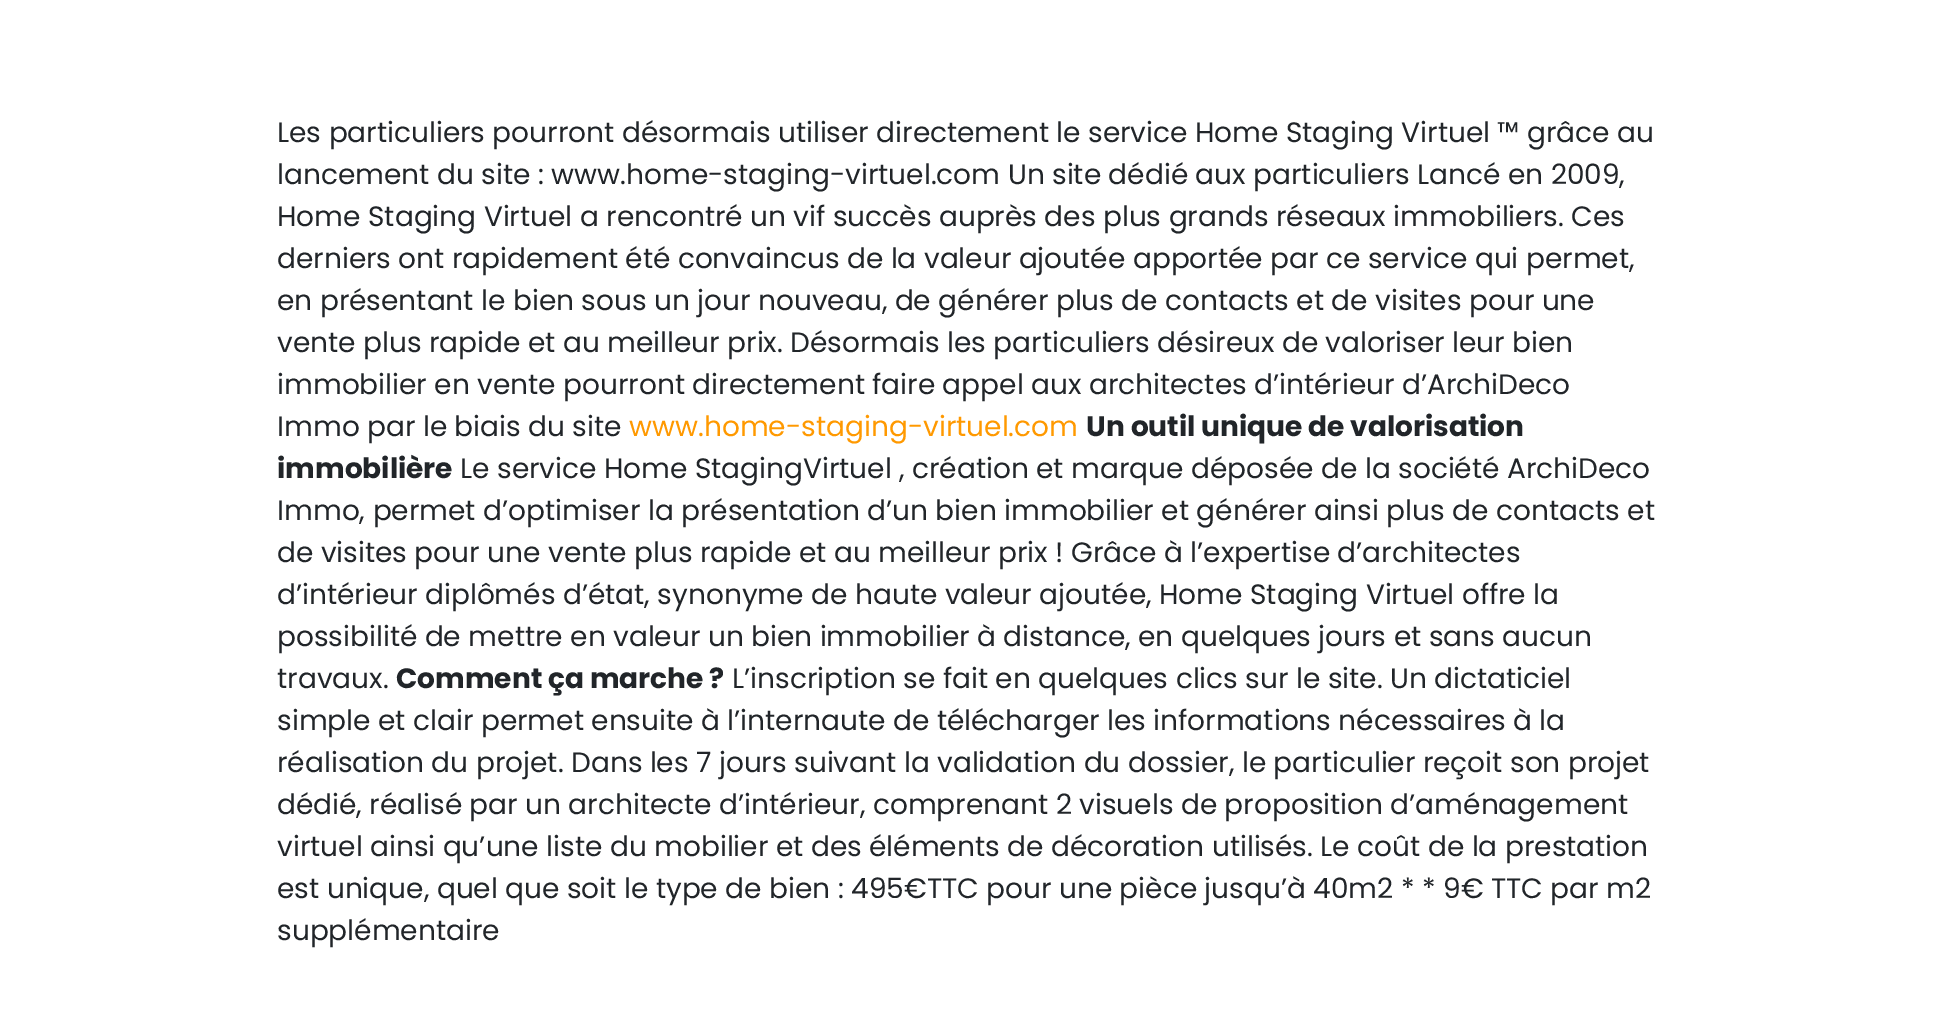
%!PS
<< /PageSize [1933 1030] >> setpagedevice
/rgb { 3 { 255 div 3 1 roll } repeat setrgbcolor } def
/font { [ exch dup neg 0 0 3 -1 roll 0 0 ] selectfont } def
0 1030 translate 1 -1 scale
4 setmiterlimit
255 255 255 rgb
0 0 1933 1030 rectfill
/Poppins-Regular 28 font
33 37 41 rgb
[
  [(Les particuliers pourront désormais utiliser directement le service Home Staging Virtuel ™ grâce au) 277 142]
  [(lancement du site : www.home-staging-virtuel.com Un site dédié aux particuliers Lancé en 2009,) 277 184]
  [(Home Staging Virtuel a rencontré un vif succès auprès des plus grands réseaux immobiliers. Ces) 277 226]
  [(derniers ont rapidement été convaincus de la valeur ajoutée apportée par ce service qui permet,) 277 268]
  [(en présentant le bien sous un jour nouveau, de générer plus de contacts et de visites pour une) 277 310]
  [(vente plus rapide et au meilleur prix. Désormais les particuliers désireux de valoriser leur bien) 277 352]
  [(immobilier en vente pourront directement faire appel aux architectes d’intérieur d’ArchiDeco) 277 394]
  [(Immo par le biais du site) 277 436]
] { aload pop moveto show } forall
255 153 0 rgb
629 436 moveto (www.home-staging-virtuel.com) show
/Poppins-Bold 28 font
33 37 41 rgb
1086 436 moveto (Un outil unique de valorisation) show
277 478 moveto (immobilière) show
/Poppins-Regular 28 font
[
  [(Le service Home StagingVirtuel , création et marque déposée de la société ArchiDeco) 460 478]
  [(Immo, permet d’optimiser la présentation d’un bien immobilier et générer ainsi plus de contacts et) 277 520]
  [(de visites pour une vente plus rapide et au meilleur prix ! Grâce à l’expertise d’architectes) 277 562]
  [(d’intérieur diplômés d’état, synonyme de haute valeur ajoutée, Home Staging Virtuel offre la) 277 604]
  [(possibilité de mettre en valeur un bien immobilier à distance, en quelques jours et sans aucun) 277 646]
  [(travaux.) 277 688]
] { aload pop moveto show } forall
/Poppins-Bold 28 font
396 688 moveto (Comment ça marche ?) show
/Poppins-Regular 28 font
[
  [(L’inscription se fait en quelques clics sur le site. Un dictaticiel) 732 688]
  [(simple et clair permet ensuite à l’internaute de télécharger les informations nécessaires à la) 277 730]
  [(réalisation du projet. Dans les 7 jours suivant la validation du dossier, le particulier reçoit son projet) 277 772]
  [(dédié, réalisé par un architecte d’intérieur, comprenant 2 visuels de proposition d’aménagement) 277 814]
  [(virtuel ainsi qu’une liste du mobilier et des éléments de décoration utilisés. Le coût de la prestation) 277 856]
  [(est unique, quel que soit le type de bien : 495€TTC pour une pièce jusqu’à 40m2 * * 9€ TTC par m2) 277 898]
  [(supplémentaire) 277 940]
] { aload pop moveto show } forall
showpage
